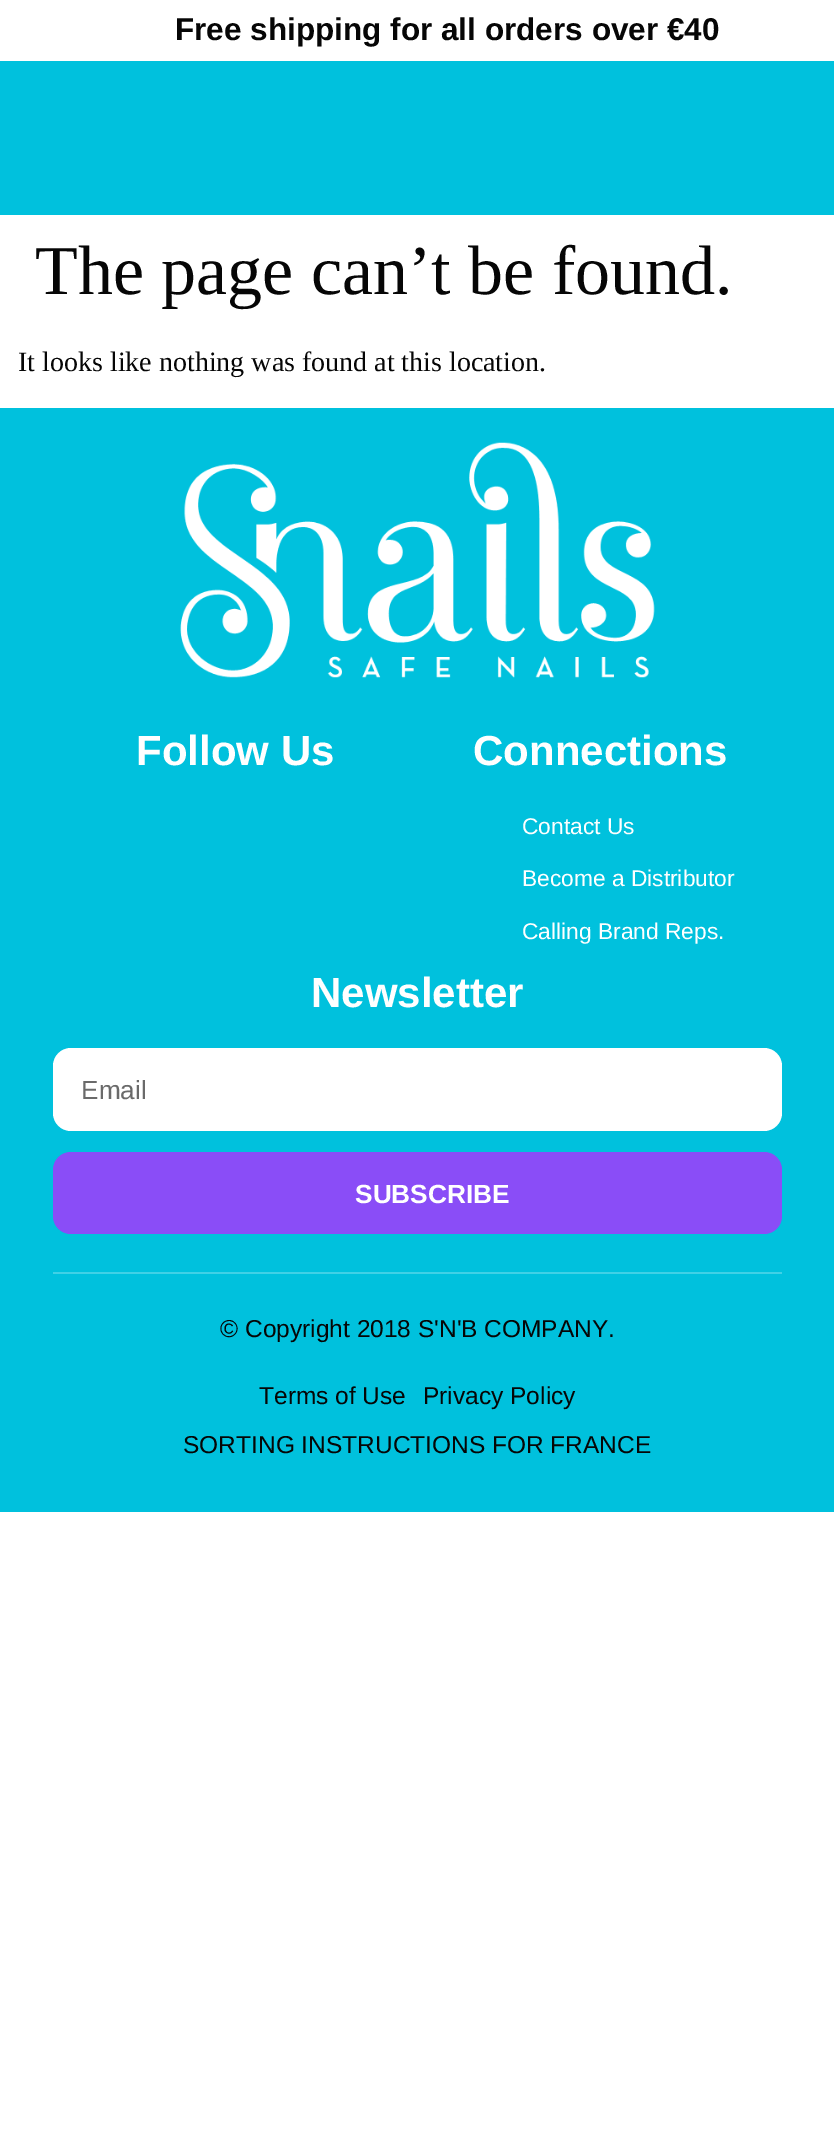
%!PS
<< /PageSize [834 2141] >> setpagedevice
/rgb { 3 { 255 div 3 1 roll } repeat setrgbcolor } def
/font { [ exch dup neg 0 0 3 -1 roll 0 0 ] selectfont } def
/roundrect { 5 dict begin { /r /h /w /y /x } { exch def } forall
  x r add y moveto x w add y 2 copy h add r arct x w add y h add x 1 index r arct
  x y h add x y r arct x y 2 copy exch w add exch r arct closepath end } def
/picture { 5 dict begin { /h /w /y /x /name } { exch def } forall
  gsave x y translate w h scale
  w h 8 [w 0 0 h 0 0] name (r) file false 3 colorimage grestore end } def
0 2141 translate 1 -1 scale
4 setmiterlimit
255 255 255 rgb
0 0 834 2141 rectfill
0 193 221 rgb
0 61 834 154 rectfill
0 408 834 1104 rectfill
(img/1.rgb) 180 442 475 236 picture
255 255 255 rgb
53 1048 729 83 18 roundrect fill
138 77 247 rgb
53 1152 729 82 18 roundrect fill
64 209 230 rgb
53 1272 729 2 rectfill
/LiberationSans-Bold 31.5 font
6 6 6 rgb
175 40 moveto (Free shipping for all orders over €40) show
/LiberationSerif-Regular 70 font
35 294 moveto (The page can’t be found.) show
/LiberationSerif-Regular 28 font
18 371 moveto (It looks like nothing was found at this location.) show
/LiberationSans-Bold 42 font
255 255 255 rgb
136 765 moveto (Follow Us) show
473 765 moveto (Connections) show
/LiberationSans-Regular 22.75 font
[
  [(Contact Us) 522 834]
  [(Become a Distributor) 522 886]
  [(Calling Brand Reps.) 522 939]
] { aload pop moveto show } forall
/LiberationSans-Bold 42 font
311 1007 moveto (Newsletter) show
/LiberationSans-Regular 26.25 font
106 106 106 rgb
81 1099 moveto (Email) show
/LiberationSans-Bold 26.25 font
255 255 255 rgb
355 1203 moveto (SUBSCRIBE) show
/LiberationSans-Regular 24.5 font
6 6 6 rgb
[
  [(© Copyright 2018 S'N'B COMPANY.) 220 1337]
  [(Terms of Use) 259 1404]
  [(Privacy Policy) 423 1404]
  [(SORTING INSTRUCTIONS FOR FRANCE) 183 1453]
] { aload pop moveto show } forall
showpage
